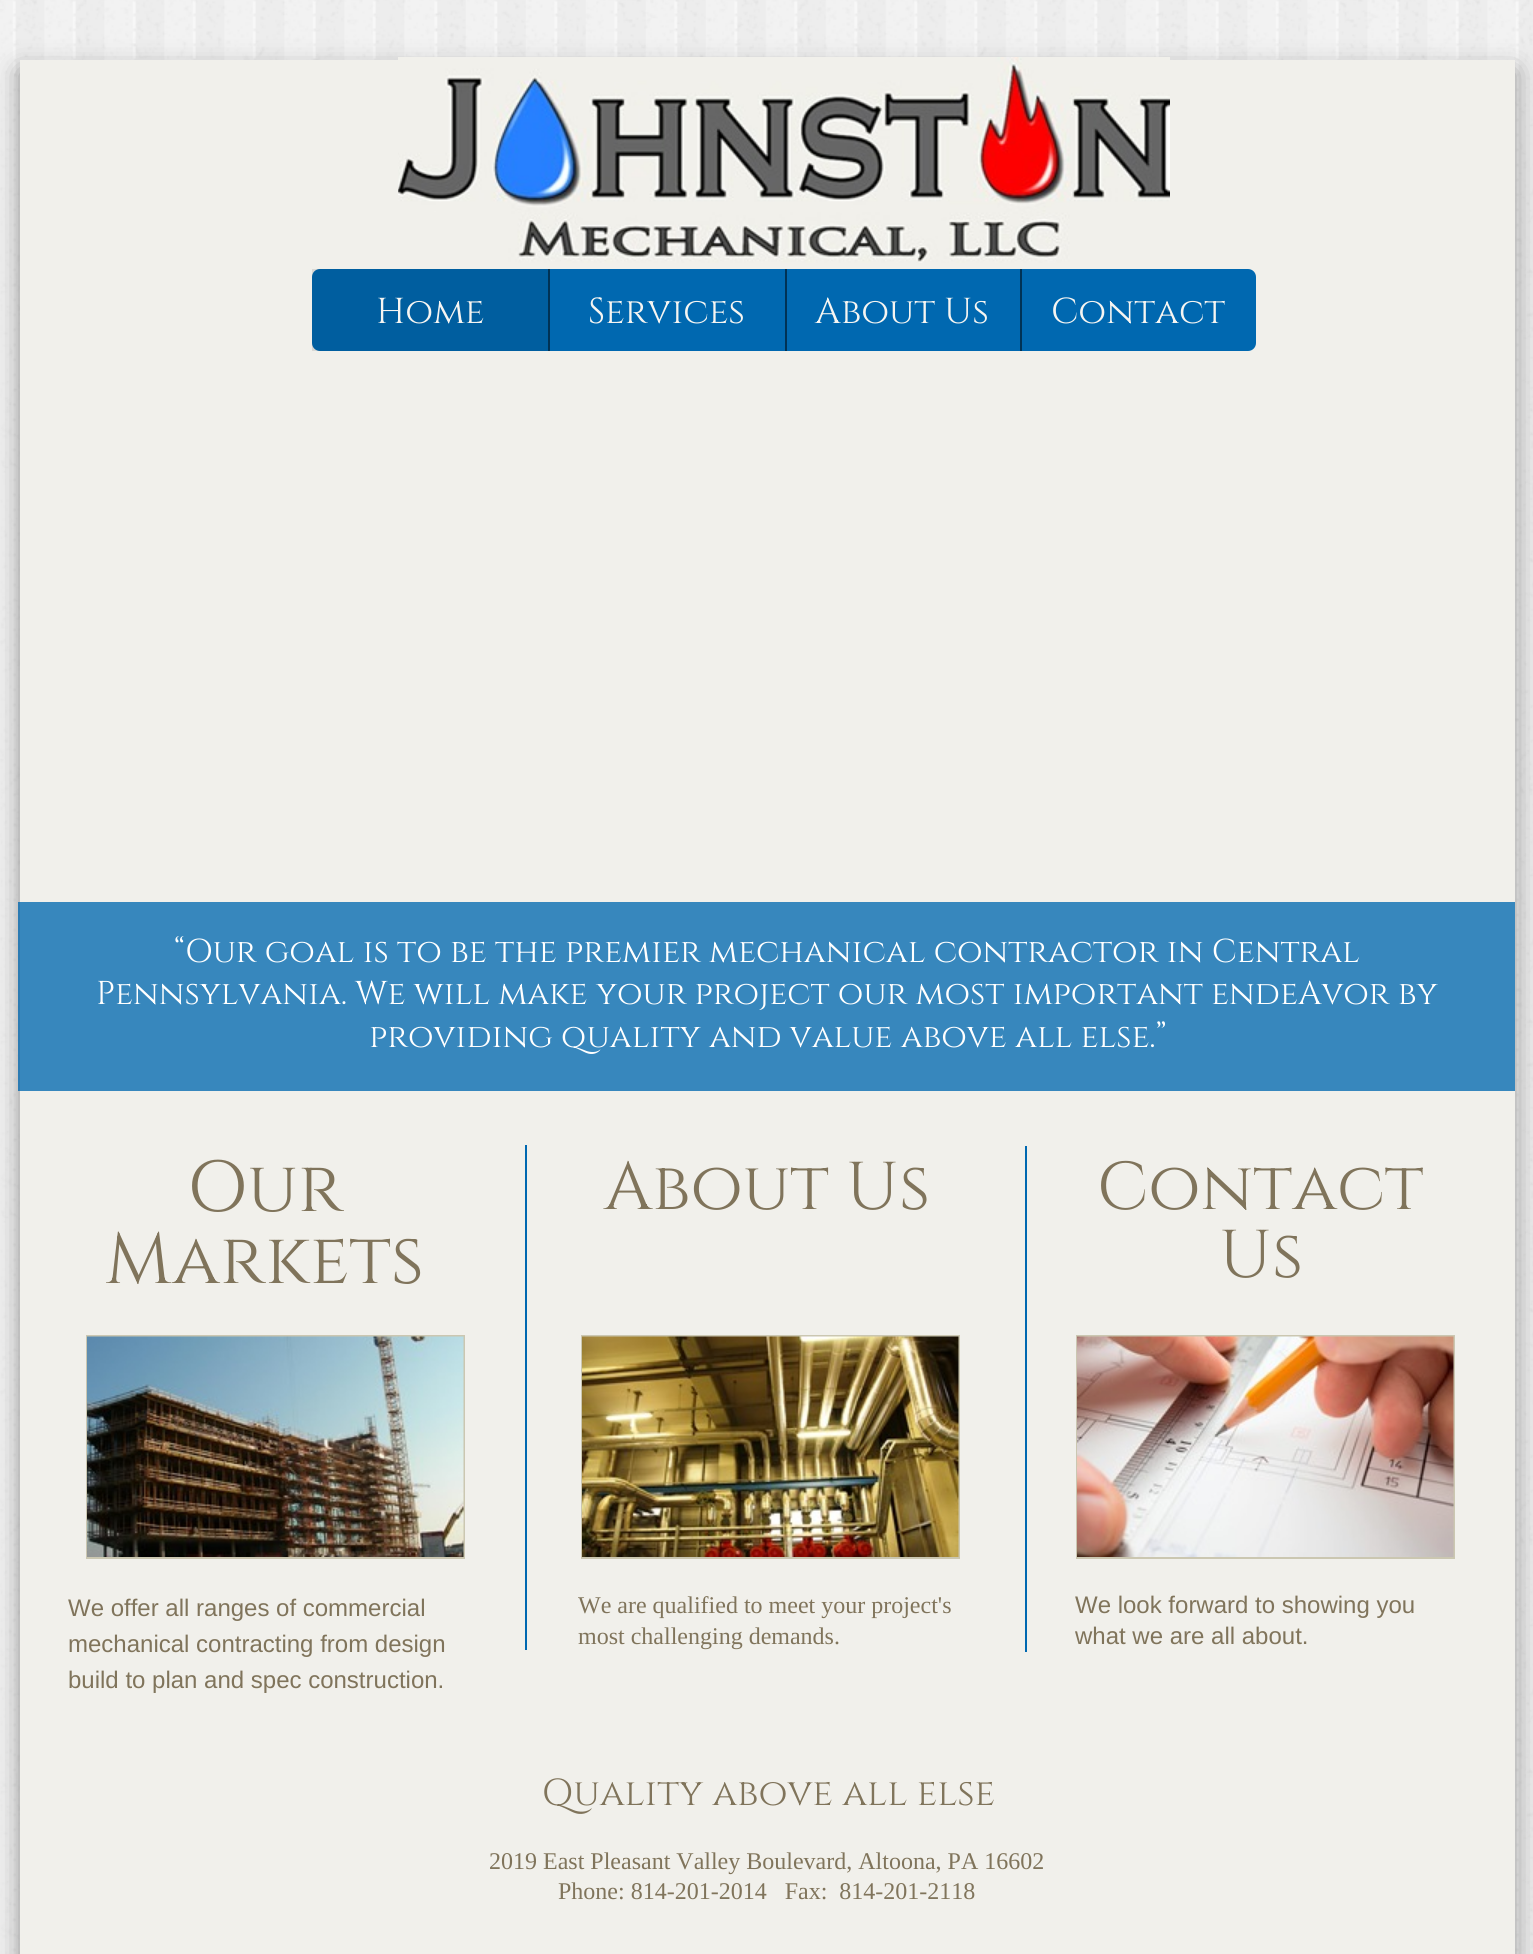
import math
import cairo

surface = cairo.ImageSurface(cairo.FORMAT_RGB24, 1533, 1954)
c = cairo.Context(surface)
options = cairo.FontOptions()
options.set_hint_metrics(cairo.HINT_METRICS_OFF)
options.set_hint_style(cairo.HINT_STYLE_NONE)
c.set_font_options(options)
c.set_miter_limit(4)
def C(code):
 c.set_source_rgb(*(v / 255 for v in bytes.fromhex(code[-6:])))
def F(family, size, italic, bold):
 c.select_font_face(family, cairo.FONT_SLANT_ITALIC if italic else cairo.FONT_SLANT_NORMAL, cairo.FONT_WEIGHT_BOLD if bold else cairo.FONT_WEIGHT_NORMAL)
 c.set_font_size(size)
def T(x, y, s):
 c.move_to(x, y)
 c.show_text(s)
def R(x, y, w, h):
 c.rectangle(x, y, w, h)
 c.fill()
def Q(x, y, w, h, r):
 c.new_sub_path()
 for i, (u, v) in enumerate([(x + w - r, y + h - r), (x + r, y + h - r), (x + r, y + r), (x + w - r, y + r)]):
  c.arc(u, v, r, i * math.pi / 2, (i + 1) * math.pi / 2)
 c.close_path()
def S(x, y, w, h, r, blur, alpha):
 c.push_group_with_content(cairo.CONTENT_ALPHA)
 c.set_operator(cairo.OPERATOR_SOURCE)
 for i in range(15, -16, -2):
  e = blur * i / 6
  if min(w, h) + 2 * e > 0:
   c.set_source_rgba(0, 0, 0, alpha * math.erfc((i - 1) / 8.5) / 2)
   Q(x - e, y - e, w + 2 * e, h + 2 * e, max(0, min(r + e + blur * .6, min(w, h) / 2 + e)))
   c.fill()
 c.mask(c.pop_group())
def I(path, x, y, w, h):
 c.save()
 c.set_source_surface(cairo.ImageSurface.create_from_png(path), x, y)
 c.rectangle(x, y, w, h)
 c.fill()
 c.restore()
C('ffffff')
c.paint()
I('1.png',0,0,1533,1954)
C('323232')
S(20,71,1495,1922,0,13,.5)
C('f1f0eb')
R(20,60,1495,1894)
I('2.png',398,57,772,206)
C('0068b0')
Q(312,269,944,82,8)
c.fill()
c.set_source_rgba(0,0,0,0.1)
R(312,269,236,82)
F('Cinzel',36,0,0)
C('f6f5f2')
T(376,323,'Home')
C('003255')
R(548,269,2,82)
C('f6f5f2')
T(588,323,'Services')
C('003255')
R(785,269,2,82)
C('f6f5f2')
T(815,323,'About Us')
C('003255')
R(1020,269,2,82)
C('f6f5f2')
T(1051,323,'Contact')
c.set_source_rgba(0,0.408,0.69,0.77)
R(18,902,1497,189)
F('Cinzel',33,0,0)
C('ffffff')
T(174,962,'“Our goal is to be the premier mechanical contractor in Central')
T(96,1004,'Pennsylvania. We will make your project our most important endeAvor by')
T(369,1047,'providing quality and value above all else.”')
F('Cinzel',72,0,0)
C('80745b')
T(187,1211,'Our')
T(105,1283,'Markets')
C('0068b0')
R(525,1145,2,505)
F('Cinzel',67.5,0,0)
C('80745b')
T(604,1209,'About Us')
C('0068b0')
R(1025,1146,2,506)
C('80745b')
T(1097,1209,'Contact')
T(1219,1277,'Us')
c.rectangle(87,1336,377,222)
C('cbc7b1')
c.stroke()
I('3.png',87,1336,377,221)
c.rectangle(582,1336,377,222)
c.stroke()
I('4.png',582,1336,377,221)
c.rectangle(1077,1336,377,222)
c.stroke()
I('5.png',1077,1336,377,221)
F('Liberation Sans',24,0,0)
C('80745b')
T(68,1616,'We offer all ranges of commercial')
T(68,1652,'mechanical contracting from design')
T(68,1688,'build to plan and spec construction.')
F('Liberation Serif',24,0,0)
T(578,1613,'We are qualified to meet your project\'s')
T(578,1644,'most challenging demands.')
F('Liberation Sans',24,0,0)
T(1075,1613,'We look forward to showing you')
T(1075,1644,'what we are all about.')
F('Cinzel',37.5,0,0)
T(542,1805,'Quality above all else')
F('Liberation Serif',24,0,0)
T(489,1869,'2019 East Pleasant Valley Boulevard, Altoona, PA 16602')
T(558,1899,'Phone: 814-201-2014   Fax:  814-201-2118')
surface.write_to_png('o.png')
